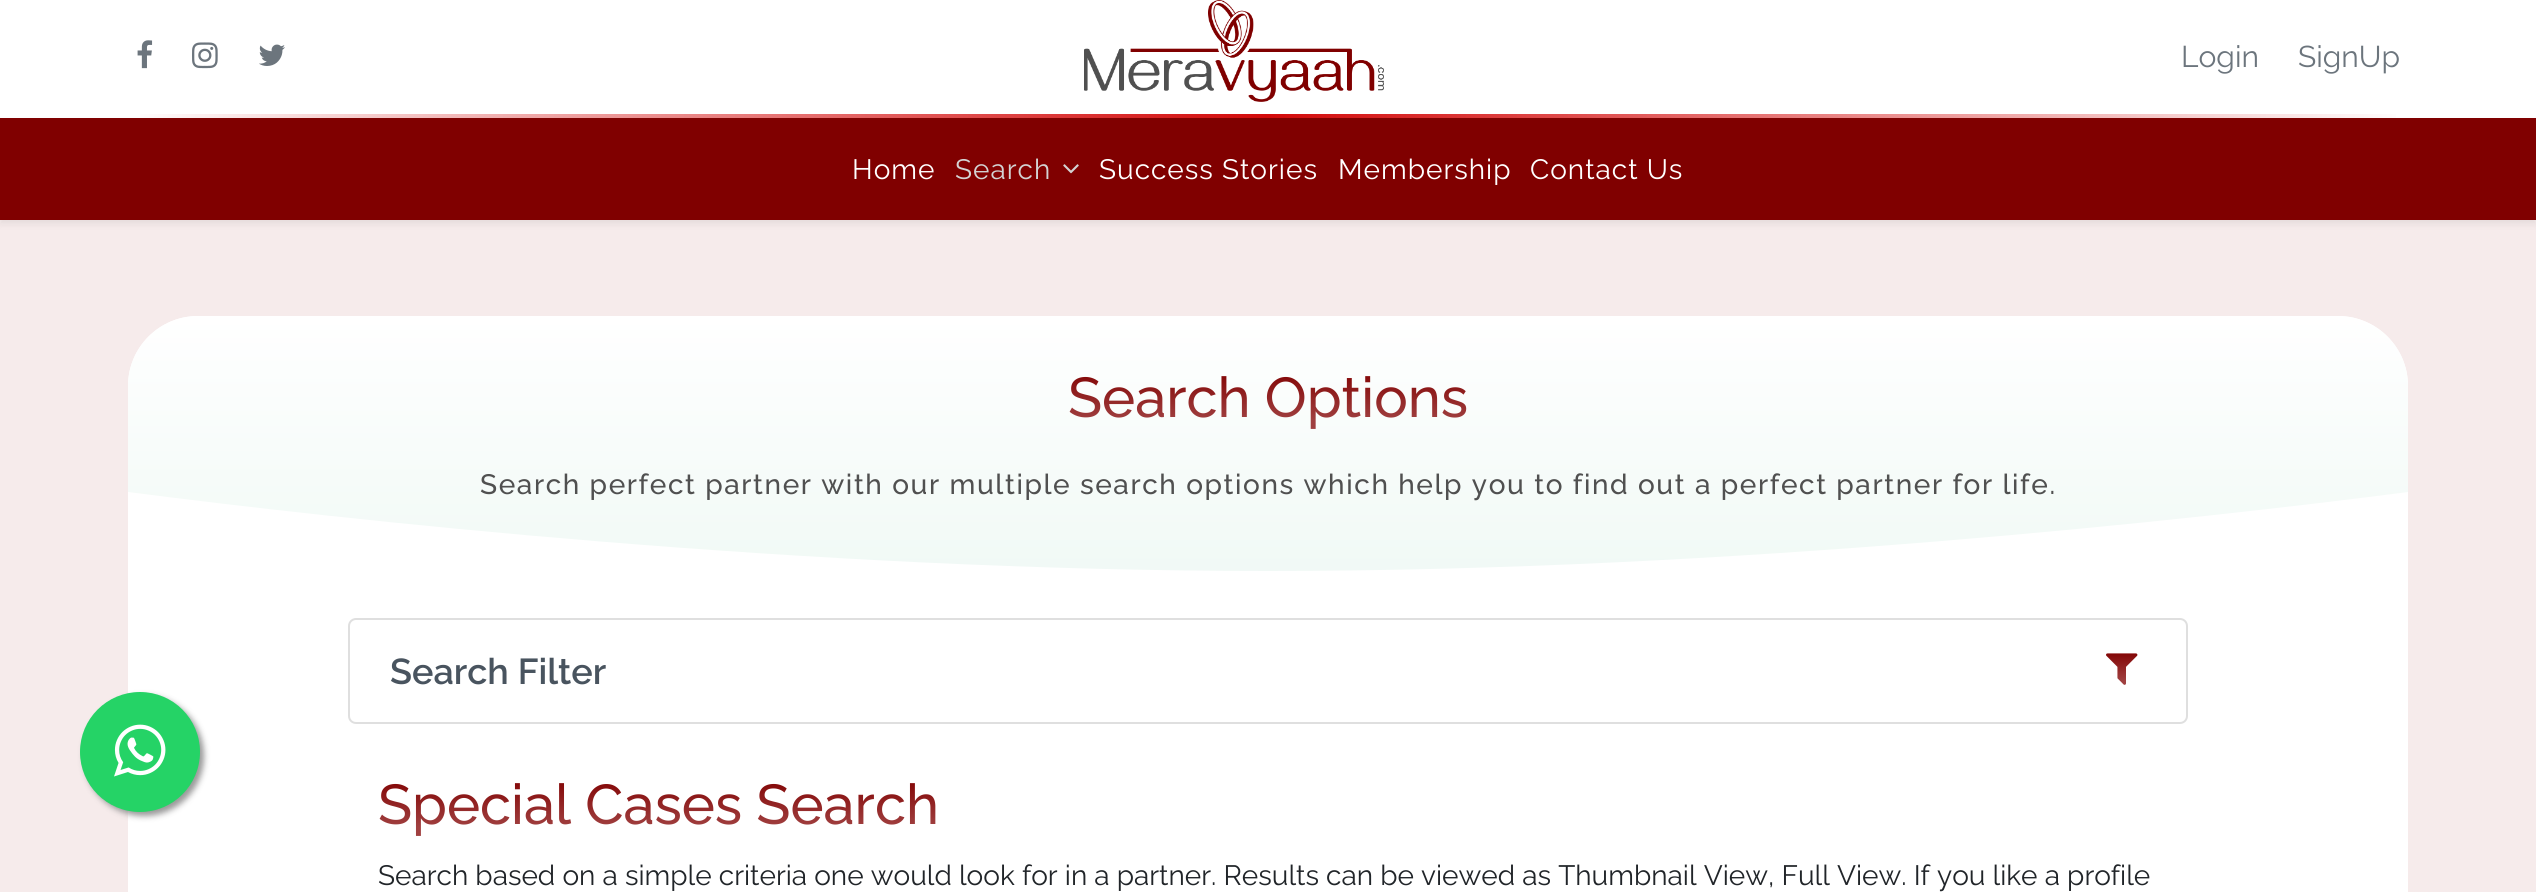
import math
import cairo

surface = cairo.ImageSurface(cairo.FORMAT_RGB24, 2536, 892)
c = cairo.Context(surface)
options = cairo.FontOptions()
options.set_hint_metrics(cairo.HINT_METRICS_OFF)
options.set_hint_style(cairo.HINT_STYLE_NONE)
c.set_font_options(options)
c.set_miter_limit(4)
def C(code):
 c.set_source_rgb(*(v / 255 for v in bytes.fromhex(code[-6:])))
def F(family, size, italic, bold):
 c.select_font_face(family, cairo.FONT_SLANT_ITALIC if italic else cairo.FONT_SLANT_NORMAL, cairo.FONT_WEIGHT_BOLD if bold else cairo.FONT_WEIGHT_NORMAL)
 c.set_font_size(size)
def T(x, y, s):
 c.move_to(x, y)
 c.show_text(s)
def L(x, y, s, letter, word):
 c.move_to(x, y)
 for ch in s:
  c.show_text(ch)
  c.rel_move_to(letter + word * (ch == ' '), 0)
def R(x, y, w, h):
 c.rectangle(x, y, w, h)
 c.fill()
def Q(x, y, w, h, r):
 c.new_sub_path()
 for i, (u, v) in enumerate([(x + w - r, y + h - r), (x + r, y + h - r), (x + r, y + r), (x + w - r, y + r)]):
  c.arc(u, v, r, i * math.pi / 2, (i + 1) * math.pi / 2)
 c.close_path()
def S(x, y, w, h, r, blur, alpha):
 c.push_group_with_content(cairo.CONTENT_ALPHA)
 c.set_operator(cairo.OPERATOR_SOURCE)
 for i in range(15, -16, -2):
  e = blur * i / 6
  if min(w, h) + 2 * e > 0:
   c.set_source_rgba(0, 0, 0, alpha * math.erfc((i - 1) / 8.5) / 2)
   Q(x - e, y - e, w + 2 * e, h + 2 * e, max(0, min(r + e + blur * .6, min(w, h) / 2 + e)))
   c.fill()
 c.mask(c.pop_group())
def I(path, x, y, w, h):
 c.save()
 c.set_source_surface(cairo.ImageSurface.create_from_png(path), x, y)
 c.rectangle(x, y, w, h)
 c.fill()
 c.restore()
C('ffffff')
c.paint()
I('1.png',137,40,16,29)
I('2.png',192,42,26,27)
I('3.png',259,44,26,22)
I('4.png',1084,0,300,102)
F('Raleway',30,0,0)
C('6c757d')
T(2181,67,'Login')
T(2298,67,'SignUp')
gradient = cairo.LinearGradient(128,116,2408,116)
gradient.add_color_stop_rgba(0,1,1,1,1)
gradient.add_color_stop_rgba(.5,0.827,0.039,0.039,1)
gradient.add_color_stop_rgba(1,1,1,1,1)
c.set_source(gradient)
R(140,114,2256,4)
C('f6ebeb')
R(0,220,2536,672)
C('000000')
S(0,122,2536,102,0,4,.07)
C('800000')
R(0,118,2536,102)
F('Raleway',28,0,0)
C('ffffff')
L(852,179,'Home',1,0)
C('d3d3d3')
L(955,179,'Search',1,0)
I('5.png',1063,164,16,10)
C('ffffff')
L(1099,179,'Success Stories',1,0)
L(1338,179,'Membership',1,0)
L(1530,179,'Contact Us',1,0)
Q(128,316,2280,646,70)
c.fill()
C('999999')
S(84,696,120,120,60,3,1)
C('25d366')
c.arc(140,752,60,0,2 * math.pi)
c.fill()
I('6.png',114,724,52,53)
gradient = cairo.LinearGradient(1268,316,1268,586)
gradient.add_color_stop_rgba(0,1,1,1,1)
gradient.add_color_stop_rgba(1,0.941,0.976,0.961,1)
c.set_source(gradient)
c.new_path()
c.move_to(198,316)
c.line_to(2338,316)
c.curve_to(2376.5,316,2408,347.5,2408,386)
c.line_to(2408,586)
c.line_to(128,586)
c.line_to(128,386)
c.curve_to(128,347.5,159.5,316,198,316)
c.close_path()
c.fill()
F('Raleway Medium',56,0,0)
gradient = cairo.LinearGradient(1268,364,1268,432)
gradient.add_color_stop_rgba(.05,0.502,0,0,1)
gradient.add_color_stop_rgba(.82,0.624,0.247,0.247,1)
c.set_source(gradient)
T(1068,417,'Search Options')
F('Raleway Medium',28,0,0)
C('505050')
L(480,494,'Search perfect partner with our multiple search options which help you to find out a perfect partner for life.',1.6,0)
C('ffffff')
c.new_path()
c.move_to(128,588)
c.line_to(128,492)
c.curve_to(337,519,802,571,1268,571)
c.curve_to(1734,571,2199,519,2408,492)
c.line_to(2408,588)
c.close_path()
c.fill()
Q(349,619,1838,104,7)
C('dfdfdf')
c.stroke()
F('Raleway SemiBold',36,0,0)
C('49545f')
T(390,684,'Search Filter')
I('7.png',2106,653,32,32)
F('Raleway Medium',56,0,0)
gradient = cairo.LinearGradient(1268,772,1268,839)
gradient.add_color_stop_rgba(.05,0.502,0,0,1)
gradient.add_color_stop_rgba(.82,0.627,0.251,0.251,1)
c.set_source(gradient)
T(378,824,'Special Cases Search')
F('Raleway',28,0,0)
C('212529')
T(378,885,'Search based on a simple criteria one would look for in a partner. Results can be viewed as Thumbnail View, Full View. If you like a profile')
surface.write_to_png('o.png')
